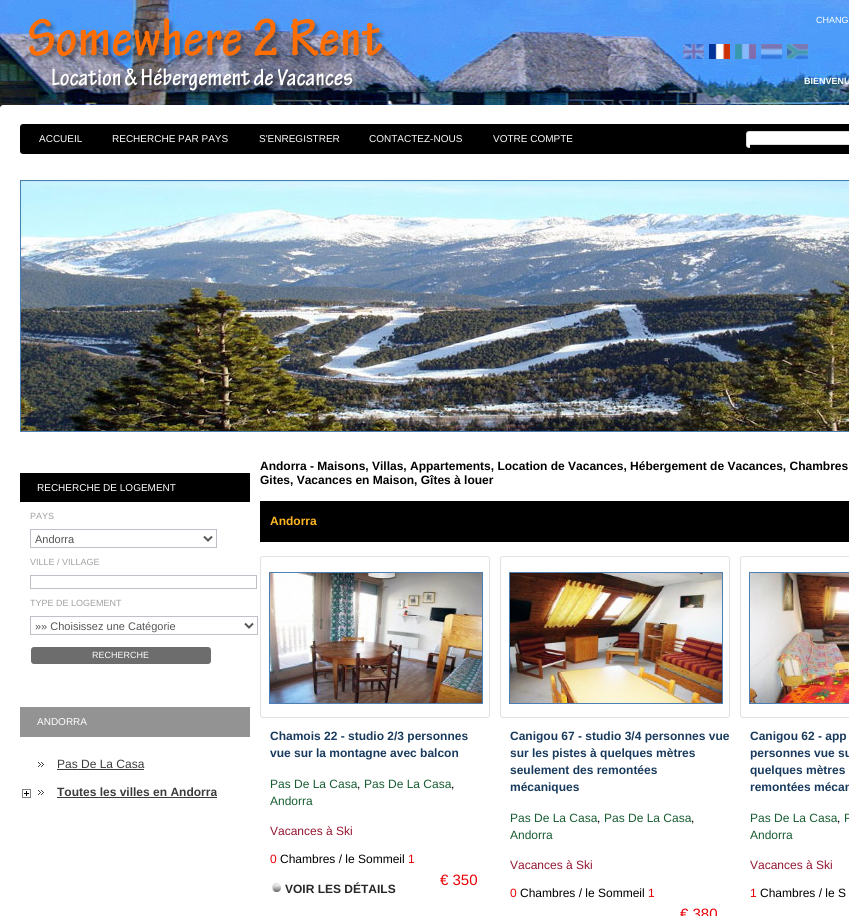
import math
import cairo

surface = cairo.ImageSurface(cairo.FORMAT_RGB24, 849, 916)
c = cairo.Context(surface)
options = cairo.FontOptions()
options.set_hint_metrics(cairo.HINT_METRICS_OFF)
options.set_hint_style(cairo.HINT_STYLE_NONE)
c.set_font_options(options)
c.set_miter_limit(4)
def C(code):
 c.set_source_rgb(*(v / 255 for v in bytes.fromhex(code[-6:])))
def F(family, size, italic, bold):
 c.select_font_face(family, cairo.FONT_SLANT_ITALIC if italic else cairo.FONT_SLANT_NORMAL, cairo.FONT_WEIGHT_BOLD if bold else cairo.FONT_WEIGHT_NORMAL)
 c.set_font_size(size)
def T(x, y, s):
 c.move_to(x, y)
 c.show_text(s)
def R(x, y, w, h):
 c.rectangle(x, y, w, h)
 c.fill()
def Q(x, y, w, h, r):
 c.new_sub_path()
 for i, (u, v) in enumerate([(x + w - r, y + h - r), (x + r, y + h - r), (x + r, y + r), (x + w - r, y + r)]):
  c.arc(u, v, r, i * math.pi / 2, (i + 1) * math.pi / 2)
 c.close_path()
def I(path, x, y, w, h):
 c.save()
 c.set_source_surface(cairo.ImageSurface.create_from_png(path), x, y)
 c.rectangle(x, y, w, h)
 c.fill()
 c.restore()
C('ffffff')
c.paint()
I('1.png',0,0,849,108)
I('2.png',0,105,849,73)
I('3.png',29,18,359,77)
F('Liberation Sans',9,0,0)
C('ffffff')
T(816,23,'CHANG')
I('4.png',683,44,21,15)
I('5.png',709,44,21,15)
I('6.png',735,44,21,15)
I('7.png',761,44,21,15)
I('8.png',787,44,21,15)
F('Liberation Sans',9,0,1)
T(804,84,'BIENVENU')
F('Liberation Sans',10,0,0)
T(39,142,'ACCUEIL')
T(112,142,'RECHERCHE PAR PAYS')
T(259,142,'S\'ENREGISTRER')
T(369,142,'CONTACTEZ-NOUS')
T(493,142,'VOTRE COMPTE')
I('9.png',746,131,4,17)
R(750,132,99,12)
C('dcdada')
R(750,131,99,1)
R(750,144,99,1)
c.rectangle(20.5,180.5,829,251)
C('4c80b5')
c.set_line_width(1)
c.stroke()
I('10.png',21,181,828,250)
C('000000')
R(20,473,230,29)
C('ffffff')
T(37,491,'RECHERCHE DE LOGEMENT')
F('Liberation Sans',9,0,0)
C('a0a0a0')
T(30,519,'PAYS')
c.rectangle(30.5,529.5,186,18)
C('bdc2c9')
c.stroke()
c.new_path()
c.move_to(204,536.5)
c.line_to(208,540.5)
c.line_to(212,536.5)
C('555555')
c.set_line_width(2)
c.stroke()
F('Liberation Sans',11,0,0)
T(35,543,'Andorra')
F('Liberation Sans',9,0,0)
C('a0a0a0')
T(30,565,'VILLE / VILLAGE')
c.rectangle(30.5,575.5,226,13)
C('bdc2c9')
c.set_line_width(1)
c.stroke()
C('a0a0a0')
T(30,606,'TYPE DE LOGEMENT')
c.rectangle(30.5,616.5,227,18)
C('bdc2c9')
c.stroke()
c.new_path()
c.move_to(245,623.5)
c.line_to(249,627.5)
c.line_to(253,623.5)
C('555555')
c.set_line_width(2)
c.stroke()
F('Liberation Sans',11,0,0)
T(35,630,'»» Choisissez une Catégorie')
C('6d6d6d')
Q(31,647,180,17,3)
c.fill()
F('Liberation Sans',9,0,0)
C('ffffff')
T(92,658,'RECHERCHE')
C('939393')
R(20,707,230,30)
F('Liberation Sans',10,0,0)
C('ffffff')
T(37,725,'ANDORRA')
I('11.png',38,762,6,5)
F('Liberation Sans',12,0,0)
C('3c3c3c')
T(57,768,'Pas De La Casa')
R(57,769,87,1)
I('12.png',22,789,9,9)
I('11.png',38,790,6,5)
F('Liberation Sans',12,0,1)
T(57,796,'Toutes les villes en Andorra')
R(57,797,160,1)
C('000000')
T(260,470,'Andorra - Maisons, Villas, Appartements, Location de Vacances, Hébergement de Vacances, Chambres')
T(260,484,'Gites, Vacances en Maison, Gîtes à louer')
R(260,501,589,41)
C('ffb824')
T(270,525,'Andorra')
Q(260.5,556.5,229,161,2.5)
C('e2e2e2')
c.set_line_width(1)
c.stroke()
c.rectangle(269.5,572.5,213,131)
C('4c80b5')
c.stroke()
I('13.png',270,573,212,130)
C('183a5d')
T(270,740,'Chamois 22 - studio 2/3 personnes')
T(270,757,'vue sur la montagne avec balcon')
F('Liberation Sans',12,0,0)
C('185d32')
T(270,788,'Pas De La Casa')
C('000000')
T(357,788,',')
C('185d32')
T(364,788,'Pas De La Casa')
C('000000')
T(451,788,',')
C('185d32')
T(270,805,'Andorra')
C('941631')
T(270,835,'Vacances à Ski')
C('e80005')
T(270,863,'0')
C('000000')
T(280,863,'Chambres / le Sommeil')
C('e80005')
T(408,863,'1')
F('Liberation Sans',15,0,0)
T(440,885,'€ 350')
I('14.png',272,883,9,9)
F('Liberation Sans',12,0,1)
C('272727')
T(285,893,'VOIR LES DÉTAILS')
Q(500.5,556.5,229,161,2.5)
C('e2e2e2')
c.stroke()
c.rectangle(509.5,572.5,213,131)
C('4c80b5')
c.stroke()
I('15.png',510,573,212,130)
C('183a5d')
T(510,740,'Canigou 67 - studio 3/4 personnes vue')
T(510,757,'sur les pistes à quelques mètres')
T(510,774,'seulement des remontées')
T(510,791,'mécaniques')
F('Liberation Sans',12,0,0)
C('185d32')
T(510,822,'Pas De La Casa')
C('000000')
T(597,822,',')
C('185d32')
T(604,822,'Pas De La Casa')
C('000000')
T(691,822,',')
C('185d32')
T(510,839,'Andorra')
C('941631')
T(510,869,'Vacances à Ski')
C('e80005')
T(510,897,'0')
C('000000')
T(520,897,'Chambres / le Sommeil')
C('e80005')
T(648,897,'1')
F('Liberation Sans',15,0,0)
T(680,919,'€ 380')
Q(740.5,556.5,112,161,2.5)
C('e2e2e2')
c.stroke()
c.rectangle(749.5,572.5,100,131)
C('4c80b5')
c.stroke()
I('16.png',750,573,99,130)
F('Liberation Sans',12,0,1)
C('183a5d')
T(750,740,'Canigou 62 - app')
T(750,757,'personnes vue su')
T(750,774,'quelques mètres')
T(750,791,'remontées mécan')
F('Liberation Sans',12,0,0)
C('185d32')
T(750,822,'Pas De La Casa')
C('000000')
T(837,822,',')
C('185d32')
T(844,822,'P')
T(750,839,'Andorra')
C('941631')
T(750,869,'Vacances à Ski')
C('e80005')
T(750,897,'1')
C('000000')
T(760,897,'Chambres / le S')
surface.write_to_png('o.png')
